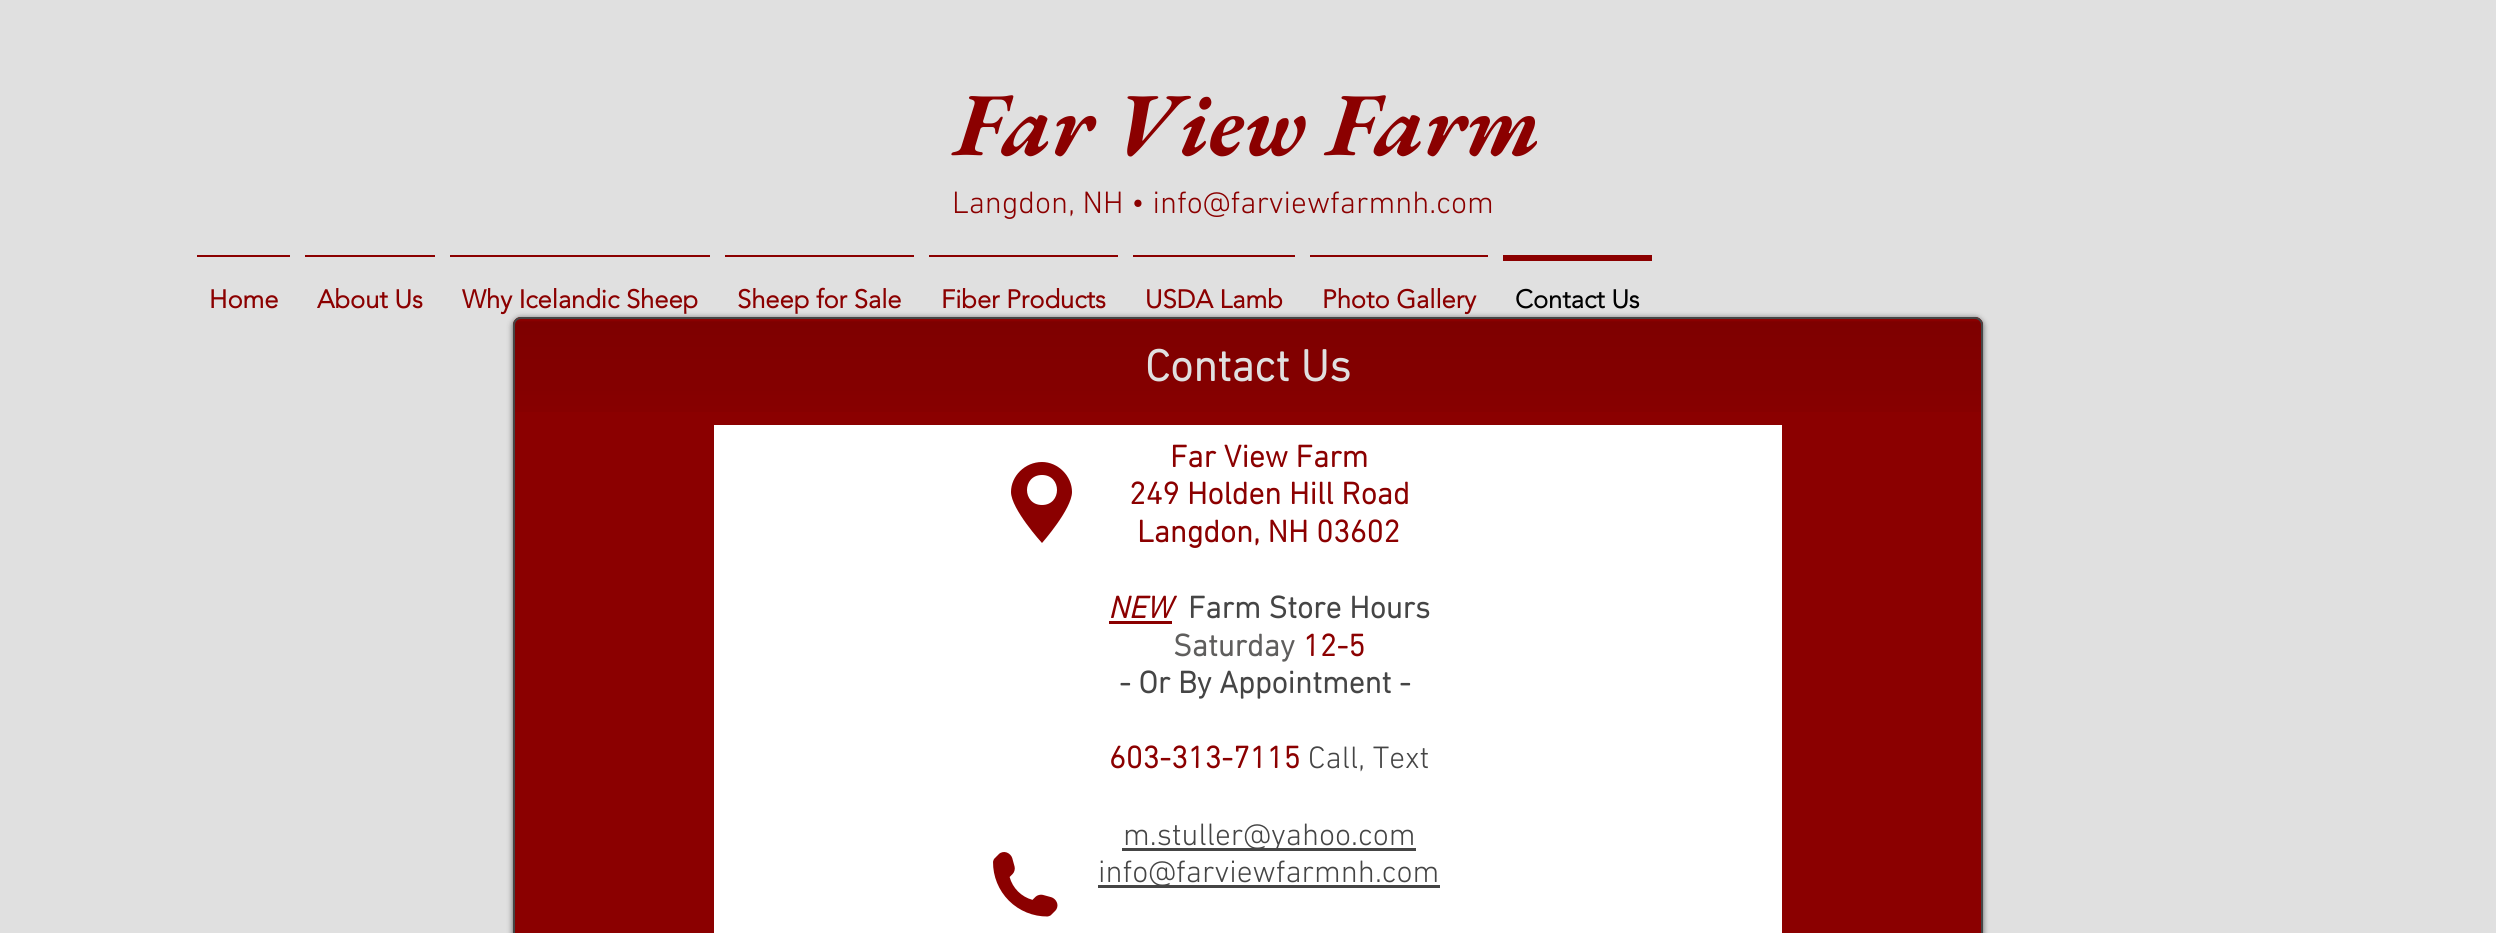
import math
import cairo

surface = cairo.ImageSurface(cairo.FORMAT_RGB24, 2496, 933)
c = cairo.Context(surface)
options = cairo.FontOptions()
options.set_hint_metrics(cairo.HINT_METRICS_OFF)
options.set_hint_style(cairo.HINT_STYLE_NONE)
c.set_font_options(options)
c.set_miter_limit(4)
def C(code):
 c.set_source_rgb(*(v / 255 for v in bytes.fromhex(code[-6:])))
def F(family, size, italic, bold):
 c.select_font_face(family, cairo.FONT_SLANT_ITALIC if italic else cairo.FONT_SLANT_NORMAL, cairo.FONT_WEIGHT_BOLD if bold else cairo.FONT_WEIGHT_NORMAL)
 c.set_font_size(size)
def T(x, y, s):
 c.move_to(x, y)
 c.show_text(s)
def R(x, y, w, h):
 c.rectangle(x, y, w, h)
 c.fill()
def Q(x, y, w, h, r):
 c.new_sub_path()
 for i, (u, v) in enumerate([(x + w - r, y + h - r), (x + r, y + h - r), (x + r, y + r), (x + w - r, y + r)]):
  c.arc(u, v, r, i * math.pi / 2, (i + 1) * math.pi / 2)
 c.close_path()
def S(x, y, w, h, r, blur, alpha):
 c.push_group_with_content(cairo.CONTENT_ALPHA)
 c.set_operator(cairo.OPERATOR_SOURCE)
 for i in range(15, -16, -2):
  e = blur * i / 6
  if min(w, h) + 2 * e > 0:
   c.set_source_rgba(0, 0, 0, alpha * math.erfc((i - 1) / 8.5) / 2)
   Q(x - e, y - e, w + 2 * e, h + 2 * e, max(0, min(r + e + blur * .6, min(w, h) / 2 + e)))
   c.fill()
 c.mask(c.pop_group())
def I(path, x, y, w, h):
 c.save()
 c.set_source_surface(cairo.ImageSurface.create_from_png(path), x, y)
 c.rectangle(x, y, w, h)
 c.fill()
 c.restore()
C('e0e0e0')
c.paint()
F('EB Garamond',90,1,1)
C('8b0000')
T(955,155,'Far View Farm')
F('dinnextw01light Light',31.5,0,0)
T(952,213,'Langdon, NH • info@farviewfarmnh.com')
R(197,255,93,2)
F('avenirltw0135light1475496',25.5,0,1)
T(209,308,'Home')
R(305,255,130,2)
T(317,308,'About Us')
R(450,255,260,2)
T(462,308,'Why Icelandic Sheep')
R(725,255,189,2)
T(737,308,'Sheep for Sale')
R(929,255,189,2)
T(941,308,'Fiber Products')
R(1133,255,162,2)
T(1145,308,'USDA Lamb')
R(1310,255,178,2)
T(1322,308,'Photo Gallery')
R(1503,255,149,6)
C('000000')
T(1515,308,'Contact Us')
C('000000')
S(513,318,1470,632,8,3,.6)
C('8b0000')
Q(513,317,1470,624,8)
c.fill()
I('1.png',513,321,1470,91)
Q(514,318,1468,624,7)
C('454545')
c.stroke()
F('dinnextw01light',45,0,1)
C('e0e0e0')
T(1145,381,'Contact Us')
C('ffffff')
R(714,425,1068,508)
C('8b0000')
c.new_path()
c.move_to(1042,462)
c.curve_to(1025,462,1011,476,1011,492)
c.curve_to(1011,509,1042,543,1042,543)
c.curve_to(1042,543,1072,509,1072,492)
c.curve_to(1072,476,1058,462,1042,462)
c.close_path()
c.move_to(1042,505)
c.curve_to(1022,505,1022,475,1042,475)
c.curve_to(1062,475,1062,505,1042,505)
c.close_path()
c.fill()
F('dinnextw01light',31.5,0,1)
T(1170,467,'Far View Farm')
T(1129,504,'249 Holden Hill Road')
T(1137,542,'Langdon, NH 03602')
F('dinnextw01light',31.5,1,1)
T(1108,618,'NEW')
R(1109,621,63,3)
F('dinnextw01light',31.5,0,1)
C('454545')
T(1188,618,'Farm Store Hours')
C('5f5e5d')
T(1173,656,'Saturday')
C('8b0000')
T(1303,656,'12-5')
C('454545')
T(1119,693,'- Or By Appointment -')
C('8b0000')
T(1109,768,'603-313-7115')
F('dinnextw01light Light',31.5,0,0)
C('454545')
T(1308,768,'Call, Text')
R(1122,848,294,3)
T(1123,845,'m.stuller@yahoo.com')
R(1098,885,342,3)
T(1098,882,'info@farviewfarmnh.com')
I('2.png',993,852,65,65)
surface.write_to_png('o.png')
